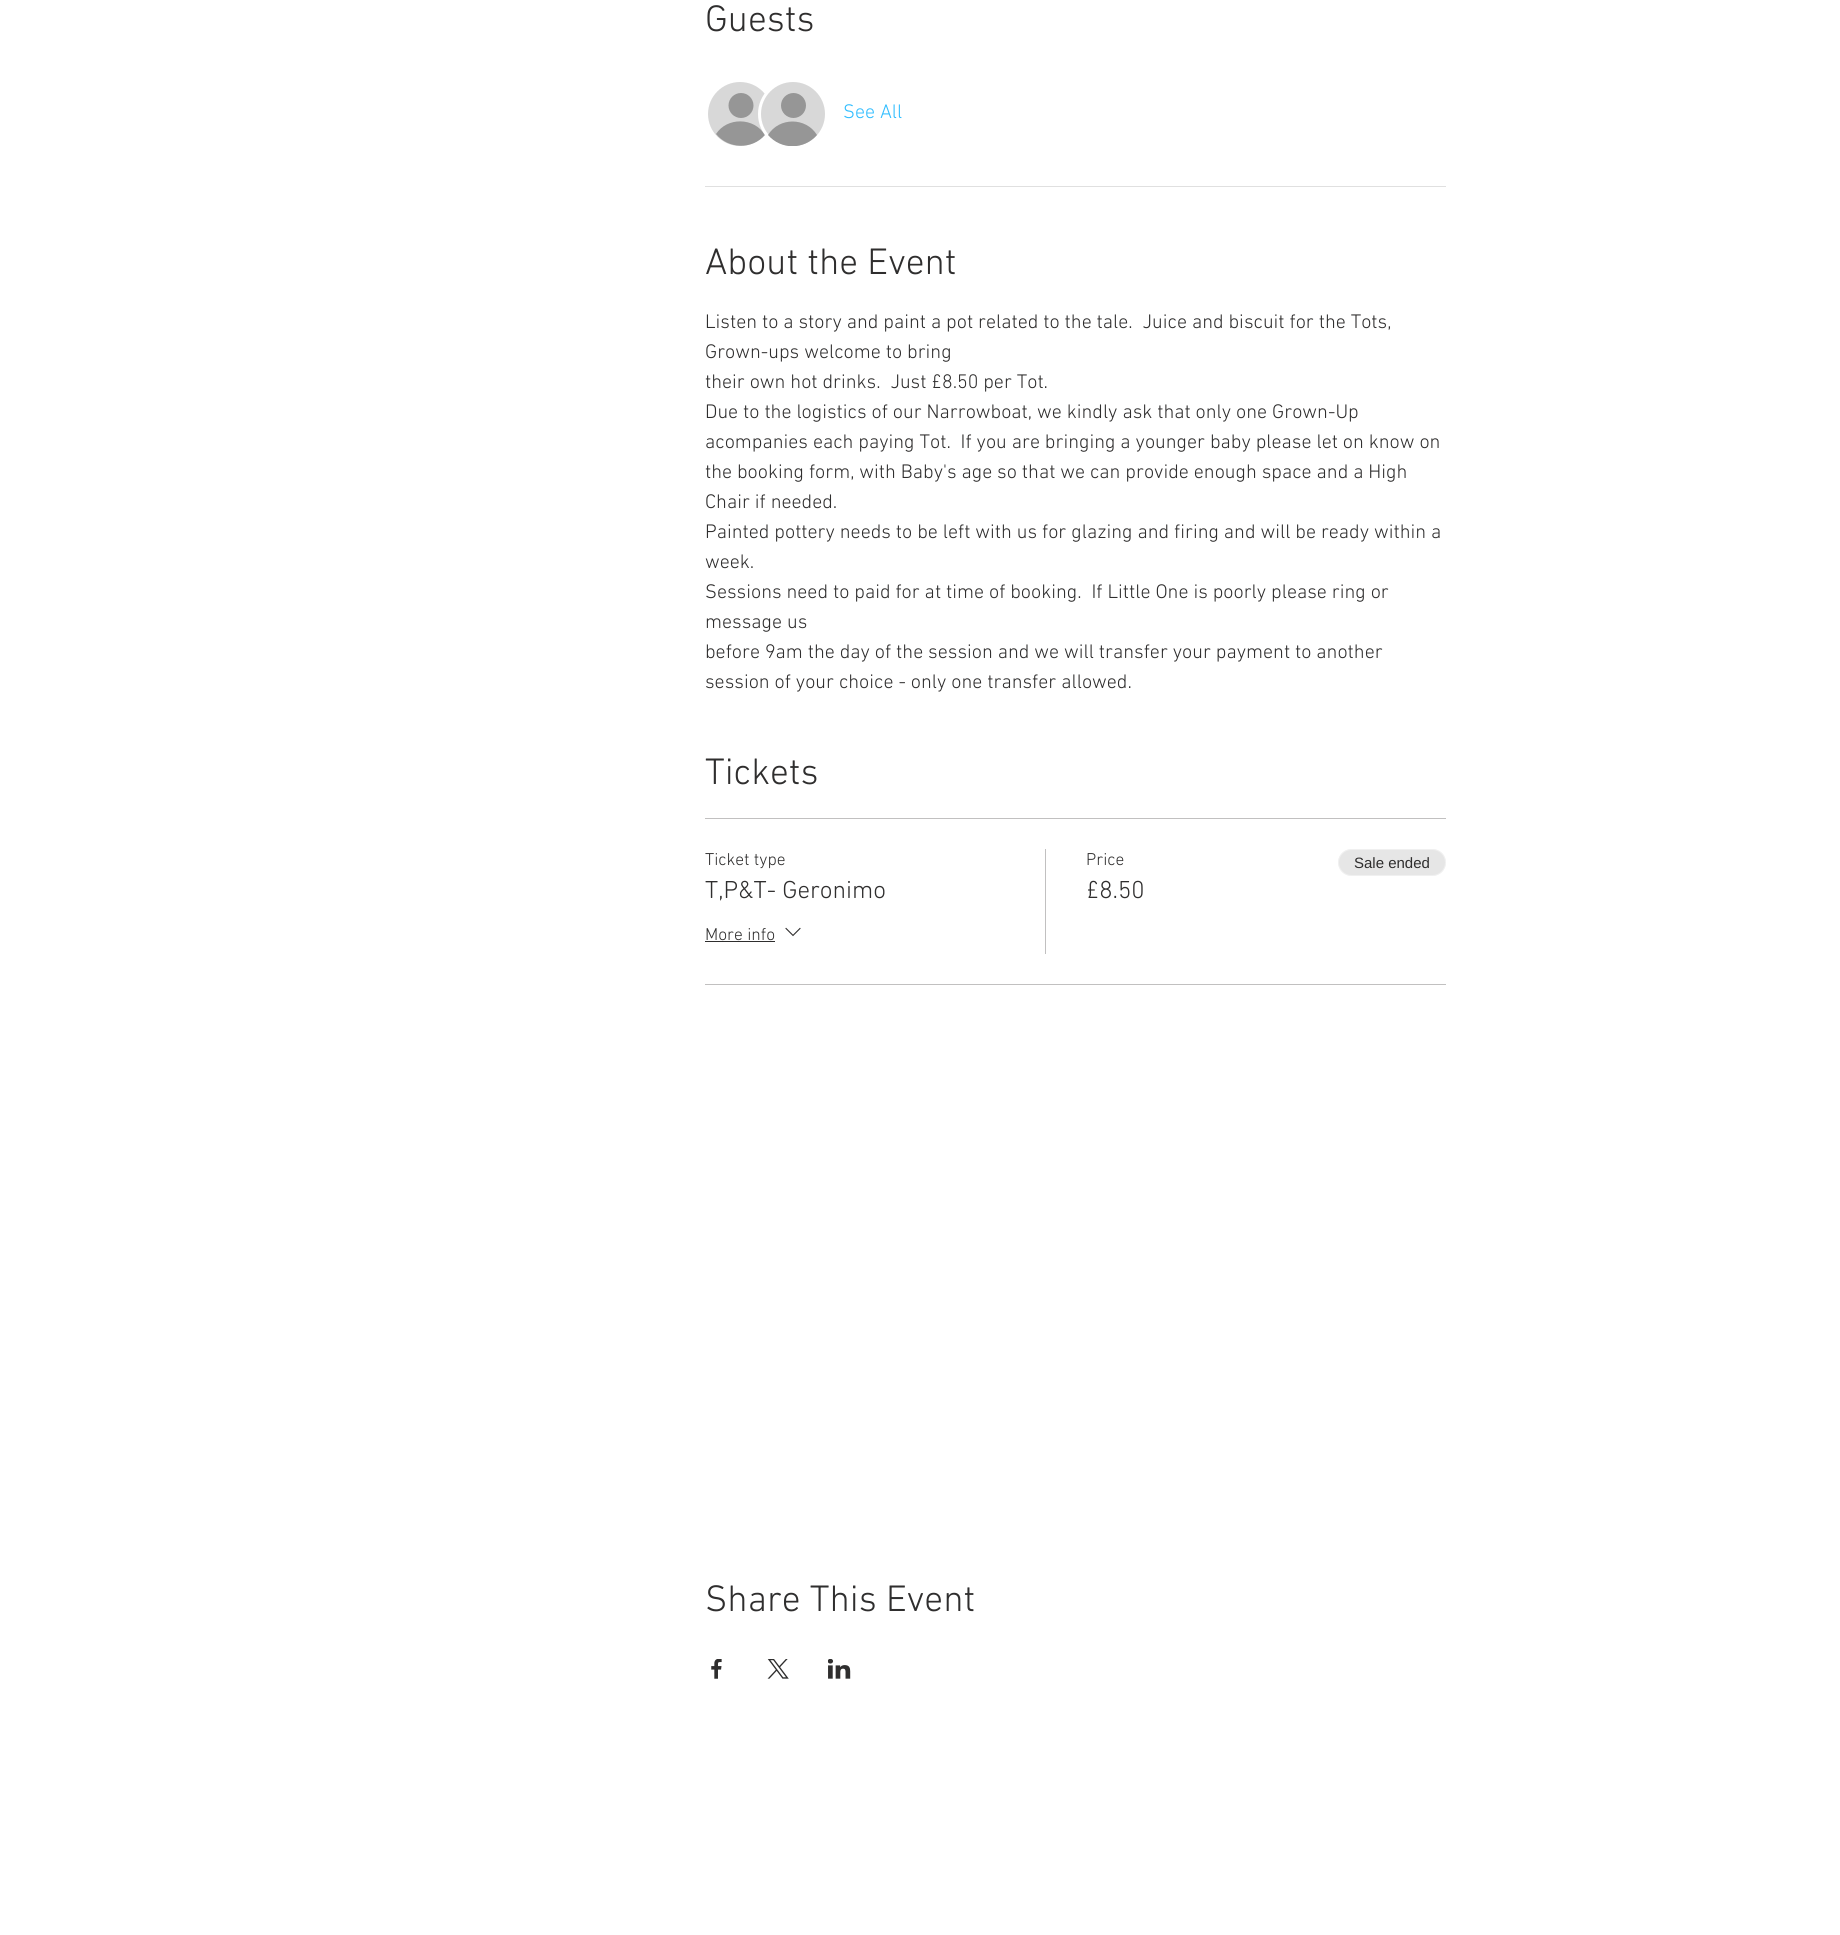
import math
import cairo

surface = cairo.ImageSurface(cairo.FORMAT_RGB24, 1840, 1935)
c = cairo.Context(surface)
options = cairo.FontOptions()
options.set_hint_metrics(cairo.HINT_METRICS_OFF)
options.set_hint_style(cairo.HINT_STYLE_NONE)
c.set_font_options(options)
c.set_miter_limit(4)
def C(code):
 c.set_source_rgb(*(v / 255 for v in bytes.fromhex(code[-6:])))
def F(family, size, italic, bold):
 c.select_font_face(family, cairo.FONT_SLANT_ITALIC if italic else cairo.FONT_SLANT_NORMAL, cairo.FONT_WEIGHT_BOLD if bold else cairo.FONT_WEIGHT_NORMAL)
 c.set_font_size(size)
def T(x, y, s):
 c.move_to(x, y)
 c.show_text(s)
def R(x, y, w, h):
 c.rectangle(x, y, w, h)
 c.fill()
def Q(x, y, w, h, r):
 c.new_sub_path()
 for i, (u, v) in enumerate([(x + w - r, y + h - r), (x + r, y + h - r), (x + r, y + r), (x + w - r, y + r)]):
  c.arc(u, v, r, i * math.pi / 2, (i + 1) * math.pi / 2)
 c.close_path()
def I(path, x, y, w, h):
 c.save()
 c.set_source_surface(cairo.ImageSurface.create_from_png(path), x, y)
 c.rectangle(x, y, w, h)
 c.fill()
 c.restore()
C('ffffff')
c.paint()
F('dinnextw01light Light',37.5,0,0)
C('2f2e2e')
T(705,31,'Guests')
C('d8d8d8')
c.new_path()
c.arc(740,114,33.5,0,2 * math.pi)
c.fill_preserve()
C('ffffff')
c.set_line_width(3)
c.stroke()
C('969696')
c.arc(741,105.5,12.5,0,2 * math.pi)
c.fill()
c.new_path()
c.move_to(765,135)
c.curve_to(752,150,728,149,716,134)
c.curve_to(727,117,754,117,765,135)
c.close_path()
c.fill()
C('d8d8d8')
c.arc(793,114,33.5,0,2 * math.pi)
c.fill_preserve()
C('ffffff')
c.stroke()
C('969696')
c.arc(793.5,105.5,12.5,0,2 * math.pi)
c.fill()
c.save()
c.rectangle(760,81,65,65)
c.clip()
c.new_path()
c.move_to(817,135)
c.curve_to(804,150,781,150,768,135)
c.curve_to(779,117,806,117,817,135)
c.close_path()
c.fill()
c.restore()
F('dinnextw01light Light',20,0,0)
C('30bdff')
T(843,118,'See All')
C('e0e0e0')
R(705,186,741,1)
F('dinnextw01light Light',37.5,0,0)
C('2f2e2e')
T(705,274,'About the Event')
F('dinnextw01light Light',20,0,0)
T(705,328,'Listen to a story and paint a pot related to the tale.  Juice and biscuit for the Tots,')
T(705,358,'Grown-ups welcome to bring')
T(705,388,'their own hot drinks.  Just £8.50 per Tot.')
T(705,418,'Due to the logistics of our Narrowboat, we kindly ask that only one Grown-Up')
T(705,448,'acompanies each paying Tot.  If you are bringing a younger baby please let on know on')
T(705,478,'the booking form, with Baby\'s age so that we can provide enough space and a High')
T(705,508,'Chair if needed.')
T(705,538,'Painted pottery needs to be left with us for glazing and firing and will be ready within a')
T(705,568,'week.')
T(705,598,'Sessions need to paid for at time of booking.  If Little One is poorly please ring or')
T(705,628,'message us')
T(705,658,'before 9am the day of the session and we will transfer your payment to another')
T(705,688,'session of your choice - only one transfer allowed.')
F('dinnextw01light Light',37.5,0,0)
T(705,784,'Tickets')
C('c1c0c0')
R(705,818,741,1)
R(705,984,741,1)
F('dinnextw01light Light',17.5,0,0)
C('2f2e2e')
T(705,865,'Ticket type')
F('dinnextw01light Light',25,0,0)
T(705,898,'T,P&T- Geronimo')
F('dinnextw01light Light',17.5,0,0)
T(705,940,'More info')
R(705,941,70,1)
I('1.png',785,927,16,10)
C('c1c0c0')
R(1045,849,1,105)
C('2f2e2e')
T(1086,865,'Price')
F('dinnextw01light Light',25,0,0)
T(1086,898,'£8.50')
C('e6e6e6')
Q(1338,849,108,27,13.5)
c.fill()
Q(1338.5,849.5,107,26,13)
c.set_source_rgba(1,1,1,0.4)
c.set_line_width(1)
c.stroke()
F('Liberation Sans',15,0,0)
C('2f2e2e')
T(1354,868,'Sale ended')
F('dinnextw01light Light',37.5,0,0)
T(705,1611,'Share This Event')
I('2.png',711,1659,11,20)
I('3.png',767,1659,22,20)
I('4.png',828,1659,23,20)
surface.write_to_png('o.png')
